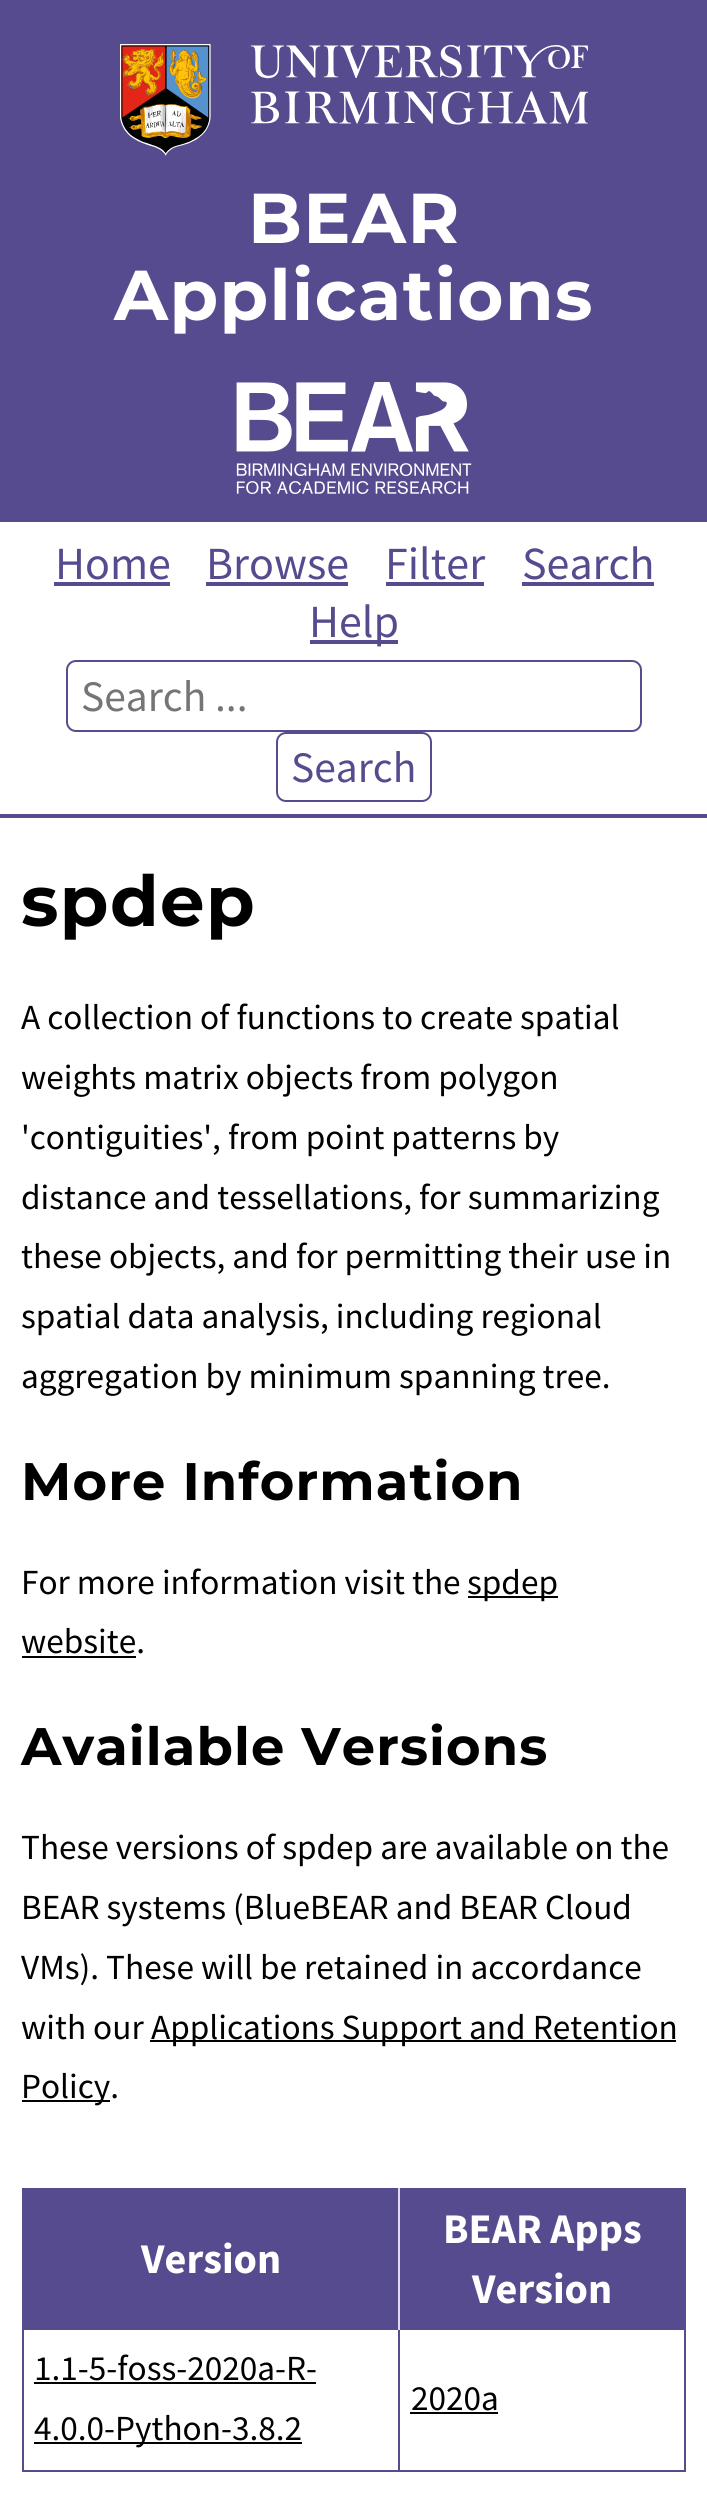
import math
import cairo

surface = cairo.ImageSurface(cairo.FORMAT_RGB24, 707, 2499)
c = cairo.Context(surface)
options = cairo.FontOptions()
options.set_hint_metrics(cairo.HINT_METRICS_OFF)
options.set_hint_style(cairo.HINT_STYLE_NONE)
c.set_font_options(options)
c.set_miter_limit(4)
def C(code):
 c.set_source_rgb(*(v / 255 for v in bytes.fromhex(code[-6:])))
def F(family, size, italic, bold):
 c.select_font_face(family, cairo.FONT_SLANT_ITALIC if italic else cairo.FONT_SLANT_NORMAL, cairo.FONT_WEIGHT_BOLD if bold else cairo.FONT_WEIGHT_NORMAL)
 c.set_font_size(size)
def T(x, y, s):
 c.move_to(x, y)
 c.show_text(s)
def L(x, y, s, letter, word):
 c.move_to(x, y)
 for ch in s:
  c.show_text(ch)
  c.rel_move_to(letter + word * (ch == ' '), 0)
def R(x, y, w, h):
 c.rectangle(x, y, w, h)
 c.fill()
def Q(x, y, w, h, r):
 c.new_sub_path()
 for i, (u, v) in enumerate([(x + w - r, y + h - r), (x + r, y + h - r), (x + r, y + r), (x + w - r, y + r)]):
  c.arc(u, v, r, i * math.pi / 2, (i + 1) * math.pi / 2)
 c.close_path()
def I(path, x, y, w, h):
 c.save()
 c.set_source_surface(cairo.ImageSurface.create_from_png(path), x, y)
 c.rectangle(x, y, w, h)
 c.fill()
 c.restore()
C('ffffff')
c.paint()
C('574b90')
R(0,0,707,522)
I('1.png',120,44,468,112)
F('Montserrat',70.5,0,1)
C('ffffff')
L(248,243,'BEAR',1.4,0)
L(114,320,'Applications',1.4,0)
I('2.png',236,382,236,112)
C('574b90')
R(0,814,707,4)
F('Source Sans Pro',46,0,0)
T(55,579,'Home')
R(54,582,116,4)
T(206,579,'Browse')
R(206,582,142,4)
T(385,579,'Filter')
R(386,582,98,4)
T(522,579,'Search')
R(522,582,132,4)
R(310,640,88,4)
T(309,637,'Help')
Q(67,661,574,70,9)
c.stroke()
F('Source Sans Pro',43.5,0,0)
C('757575')
T(81,711,'Search ...')
Q(277,733,154,68,9)
C('574b90')
c.stroke()
T(291,782,'Search')
F('Montserrat',70.5,0,1)
C('000000')
L(21,926,'spdep',1.4,0)
F('Source Sans Pro',35.25,0,0)
T(21,1029,'A collection of functions to create spatial')
T(21,1089,'weights matrix objects from polygon')
T(21,1149,'\'contiguities\', from point patterns by')
T(21,1209,'distance and tessellations, for summarizing')
T(21,1268,'these objects, and for permitting their use in')
T(21,1328,'spatial data analysis, including regional')
T(21,1388,'aggregation by minimum spanning tree.')
F('Montserrat',52.75,0,1)
L(21,1500,'More Information',1.1,0)
F('Source Sans Pro',35.25,0,0)
T(21,1594,'For more information visit the')
R(468,1596,90,2)
T(467,1594,'spdep')
T(21,1653,'website.')
R(22,1656,114,2)
F('Montserrat',52.75,0,1)
L(21,1765,'Available Versions',1.1,0)
F('Source Sans Pro',35.25,0,0)
T(21,1859,'These versions of spdep are available on the')
T(21,1919,'BEAR systems (BlueBEAR and BEAR Cloud')
T(21,1979,'VMs). These will be retained in accordance')
T(21,2039,'with our')
R(150,2040,526,2)
T(151,2039,'Applications Support and Retention')
R(22,2100,88,2)
T(21,2098,'Policy.')
C('574b90')
R(22,2188,664,2)
R(684,2188,2,284)
R(22,2470,664,2)
R(22,2188,2,284)
R(24,2190,374,138)
F('Source Sans Pro',42.25,0,1)
C('ffffff')
T(141,2273,'Version')
C('574b90')
R(400,2190,284,138)
R(398,2328,288,2)
R(398,2328,2,144)
R(22,2328,378,2)
C('e5d9f2')
R(398,2188,2,142)
C('ffffff')
T(443,2243,'BEAR Apps')
T(472,2303,'Version')
F('Source Sans Pro',35.25,0,0)
C('000000')
T(34,2380,'1.1-5-foss-2020a-R-')
R(34,2382,282,2)
R(34,2442,268,2)
T(34,2440,'4.0.0-Python-3.8.2')
T(411,2410,'2020a')
R(410,2412,88,2)
surface.write_to_png('o.png')
